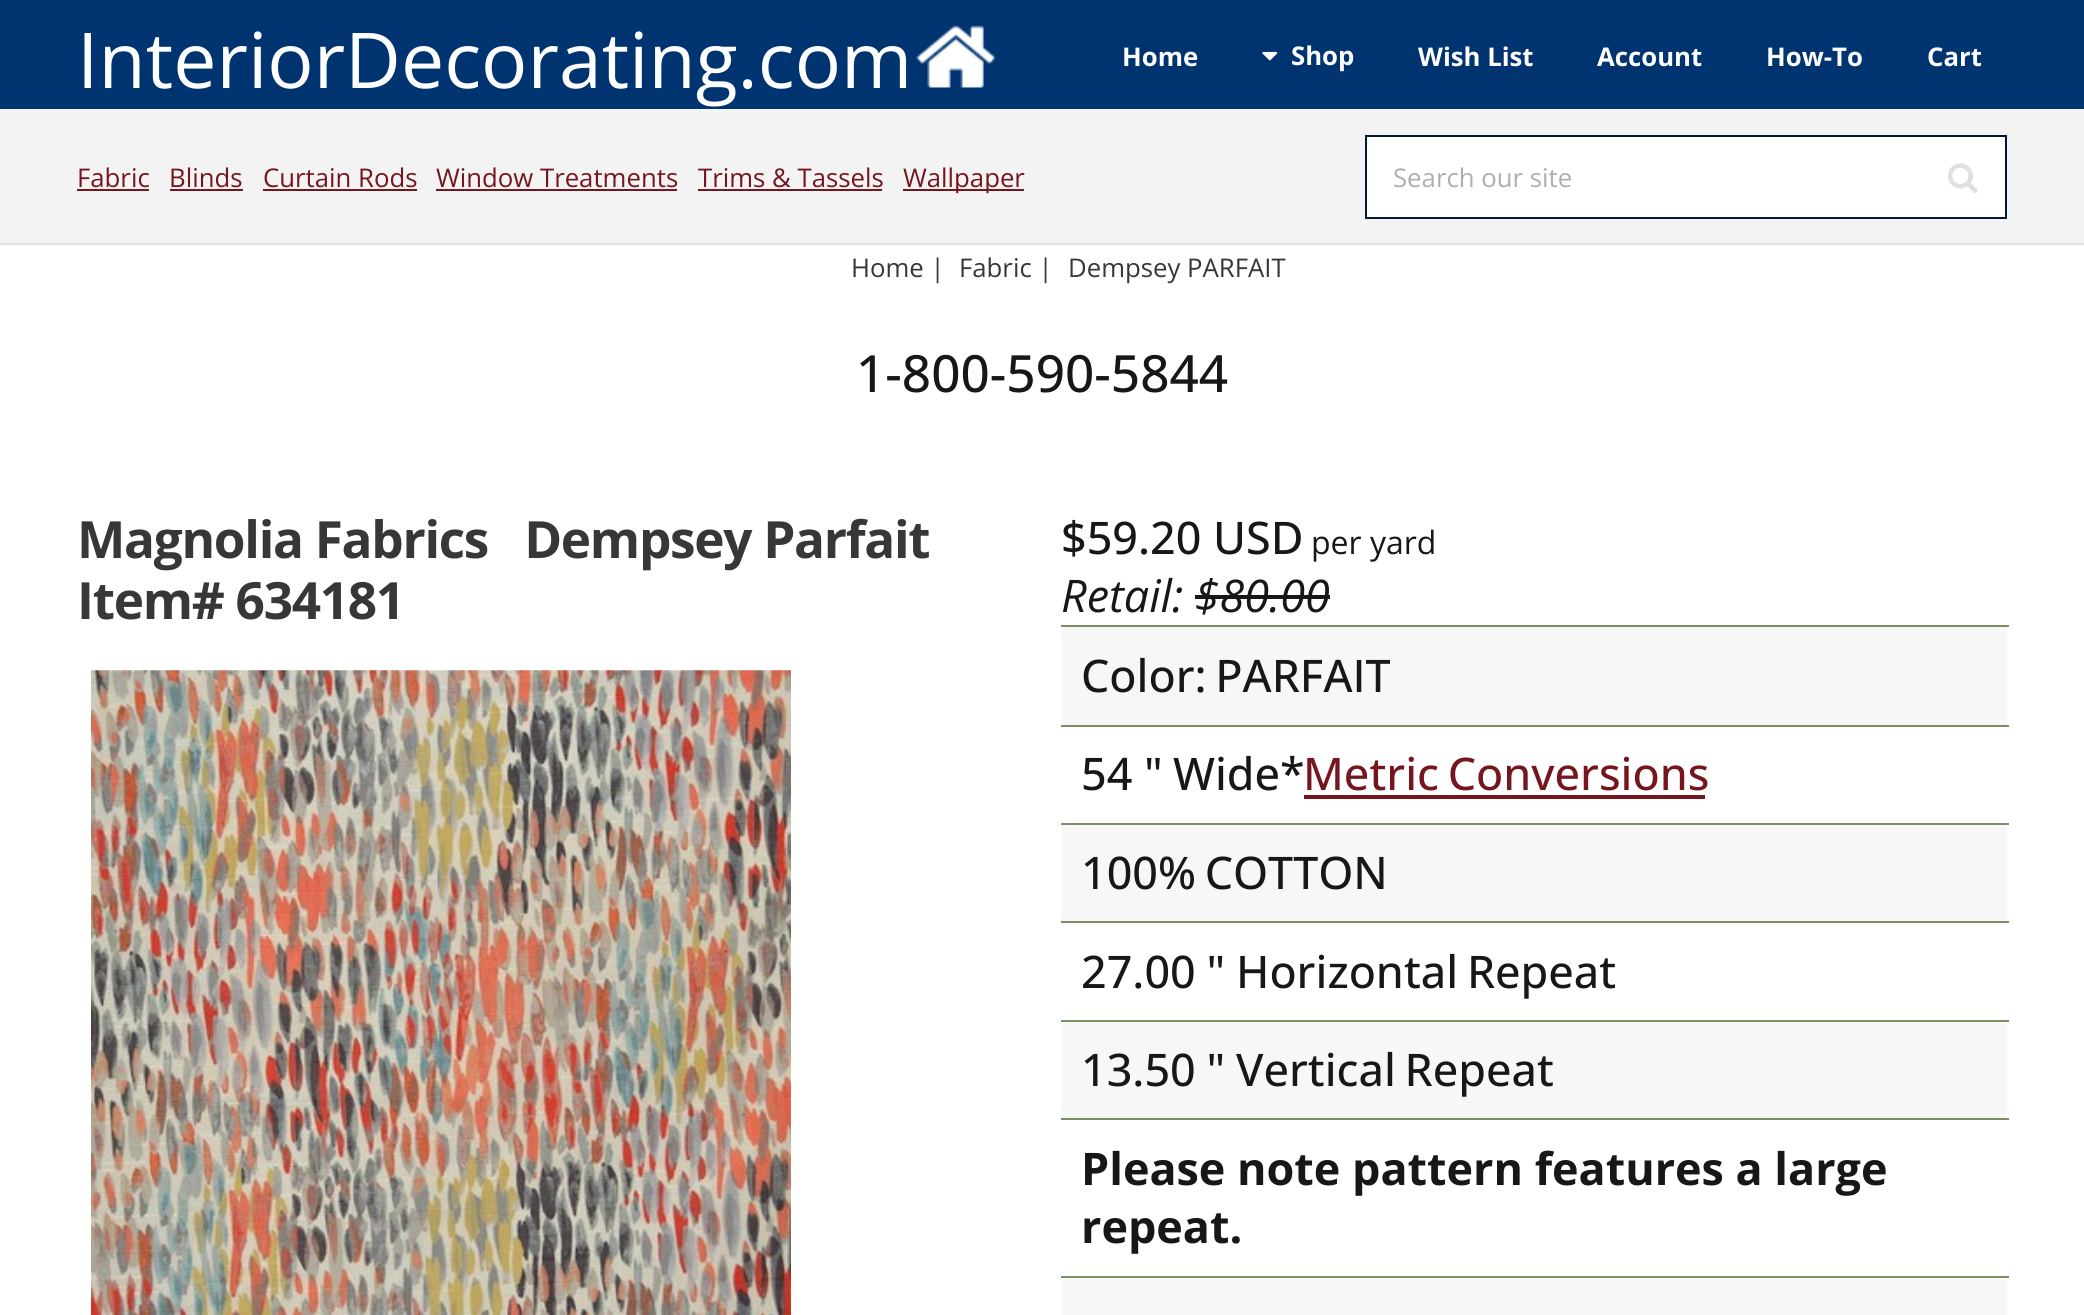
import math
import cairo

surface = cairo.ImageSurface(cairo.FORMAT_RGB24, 2084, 1315)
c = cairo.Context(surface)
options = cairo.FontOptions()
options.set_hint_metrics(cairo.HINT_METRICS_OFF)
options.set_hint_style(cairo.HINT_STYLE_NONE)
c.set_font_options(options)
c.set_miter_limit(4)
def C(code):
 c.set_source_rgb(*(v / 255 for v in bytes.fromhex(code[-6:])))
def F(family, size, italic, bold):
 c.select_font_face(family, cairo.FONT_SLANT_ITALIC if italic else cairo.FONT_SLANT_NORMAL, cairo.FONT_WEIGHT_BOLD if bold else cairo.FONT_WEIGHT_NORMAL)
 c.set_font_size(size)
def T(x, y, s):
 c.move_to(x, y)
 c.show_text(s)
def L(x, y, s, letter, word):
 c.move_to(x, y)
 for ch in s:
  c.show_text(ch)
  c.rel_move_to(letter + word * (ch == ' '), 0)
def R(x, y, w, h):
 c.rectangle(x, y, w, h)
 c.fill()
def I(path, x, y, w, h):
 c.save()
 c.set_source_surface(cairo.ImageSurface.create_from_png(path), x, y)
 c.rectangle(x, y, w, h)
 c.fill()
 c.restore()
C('ffffff')
c.paint()
C('003471')
R(0,0,2084,109)
F('Open Sans',77,0,0)
C('ffffff')
T(77,88,'InteriorDecorating.com')
I('1.png',916,25,80,63)
F('Open Sans',25.75,0,1)
T(1122,66,'Home')
I('2.png',1262,51,16,10)
T(1291,65,'Shop')
T(1418,66,'Wish List')
T(1597,66,'Account')
T(1766,66,'How-To')
T(1927,66,'Cart')
C('f3f3f3')
R(0,109,2084,134)
C('e0e0e0')
R(0,243,2084,2)
F('Open Sans',25.75,0,0)
C('75161e')
T(77,187,'Fabric')
R(77,189,72,2)
T(169,187,'Blinds')
R(170,189,73,2)
T(263,187,'Curtain Rods')
R(263,189,154,2)
T(436,187,'Window Treatments')
R(436,189,241,2)
T(698,187,'Trims & Tassels')
R(698,189,184,2)
R(903,189,121,2)
T(903,187,'Wallpaper')
C('ffffff')
R(1367,137,638,80)
I('3.png',1948,163,30,30)
c.rectangle(1366,136,640,82)
C('001833')
c.stroke()
C('aeaeae')
T(1393,187,'Search our site')
C('373737')
T(851,277,'Home |')
T(959,277,'Fabric |')
T(1068,277,'Dempsey PARFAIT')
F('Open Sans Medium',51.3,0,0)
C('171717')
T(856,392,'1-800-590-5844')
F('Open Sans',51.3,0,1)
C('373737')
L(77,558,'Magnolia Fabrics   Dempsey Parfait',-1.3,0)
L(77,619,'Item# 634181',-1.3,0)
I('4.png',91,670,700,645)
F('Open Sans Medium',44.9,0,0)
C('171717')
T(1061,554,'$59.20')
T(1213,554,'USD')
F('Open Sans',32,0,0)
T(1311,554,'per yard')
F('Open Sans',44.9,1,0)
T(1061,612,'Retail: $80.00')
R(1195,595,135,4)
C('f7f7f7')
R(1062,627,945,98)
C('7e8e64')
R(1061,625,948,2)
F('Open Sans Medium',44.9,0,0)
C('171717')
L(1081,692,'Color: PARFAIT',0,-3)
C('7e8e64')
R(1061,725,948,2)
C('171717')
T(1081,790,'54 "')
T(1173,790,'Wide*')
C('75161e')
L(1303,790,'Metric Conversions',0,-3)
R(1304,795,401,4)
C('f7f7f7')
R(1062,825,945,96)
C('7e8e64')
R(1061,823,948,2)
C('171717')
L(1081,889,'100% COTTON',0,-3)
C('7e8e64')
R(1061,921,948,2)
C('171717')
L(1081,988,'27.00 "',0,-1)
L(1236,988,'Horizontal Repeat',0,-3)
C('f7f7f7')
R(1062,1022,945,96)
C('7e8e64')
R(1061,1020,948,2)
C('171717')
L(1081,1086,'13.50 "',0,-1)
L(1236,1086,'Vertical Repeat',0,-3)
C('7e8e64')
R(1061,1118,948,2)
F('Open Sans',44.9,0,1)
C('171717')
T(1081,1185,'Please note pattern features a large')
T(1081,1243,'repeat.')
C('f7f7f7')
R(1062,1278,945,37)
C('7e8e64')
R(1061,1276,948,2)
surface.write_to_png('o.png')
